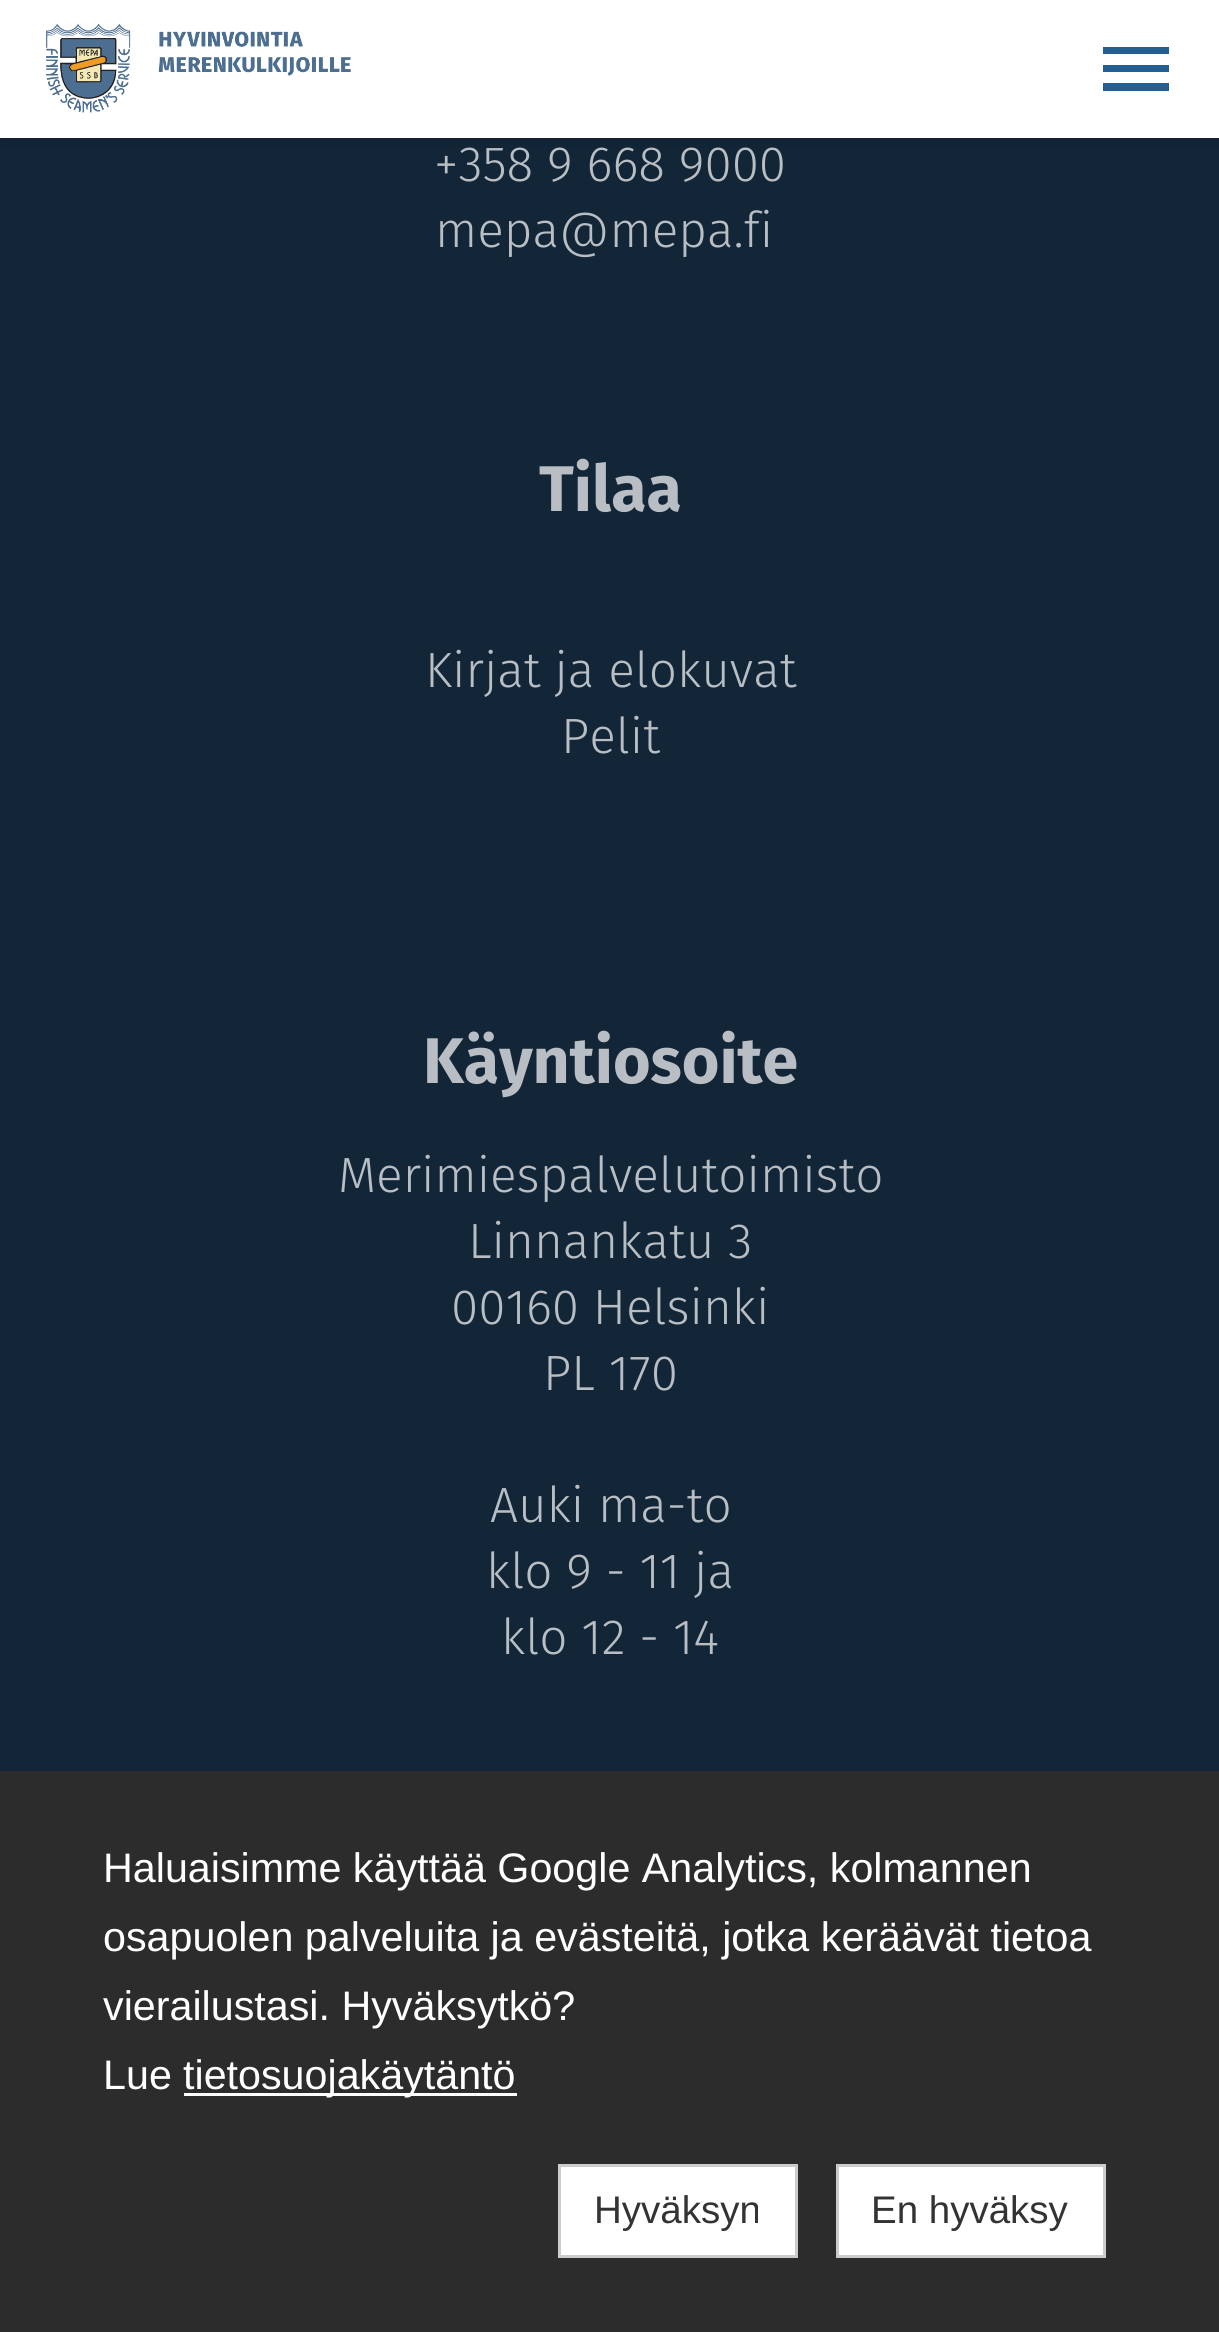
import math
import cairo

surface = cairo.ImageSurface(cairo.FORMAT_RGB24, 1219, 2332)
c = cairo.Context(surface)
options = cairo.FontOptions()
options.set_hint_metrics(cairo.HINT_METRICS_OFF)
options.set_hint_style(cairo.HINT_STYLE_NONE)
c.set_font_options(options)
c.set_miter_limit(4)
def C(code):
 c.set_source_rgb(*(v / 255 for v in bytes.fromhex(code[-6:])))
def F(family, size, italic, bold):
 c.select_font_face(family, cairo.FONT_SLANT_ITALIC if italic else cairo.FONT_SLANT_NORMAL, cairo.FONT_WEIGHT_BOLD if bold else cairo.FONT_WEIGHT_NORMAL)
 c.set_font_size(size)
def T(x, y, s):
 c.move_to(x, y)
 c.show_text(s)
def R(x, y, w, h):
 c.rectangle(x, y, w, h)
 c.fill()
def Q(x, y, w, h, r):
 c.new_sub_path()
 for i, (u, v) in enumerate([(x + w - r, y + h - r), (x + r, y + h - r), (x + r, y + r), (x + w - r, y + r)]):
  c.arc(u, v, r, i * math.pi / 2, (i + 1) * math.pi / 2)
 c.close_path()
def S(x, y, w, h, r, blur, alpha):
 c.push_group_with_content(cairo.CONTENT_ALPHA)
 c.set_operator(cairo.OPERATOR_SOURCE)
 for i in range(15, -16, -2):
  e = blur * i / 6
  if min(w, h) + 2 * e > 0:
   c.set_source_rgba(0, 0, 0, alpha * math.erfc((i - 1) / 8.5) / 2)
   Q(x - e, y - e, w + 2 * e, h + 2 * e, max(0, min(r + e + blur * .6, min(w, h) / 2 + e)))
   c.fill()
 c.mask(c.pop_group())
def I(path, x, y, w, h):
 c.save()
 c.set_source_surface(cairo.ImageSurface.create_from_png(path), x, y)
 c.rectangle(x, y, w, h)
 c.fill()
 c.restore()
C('122638')
c.paint()
C('000000')
S(0,0,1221,138,0,7,.2)
C('ffffff')
R(0,0,1219,138)
I('1.png',46,24,305,89)
C('235f91')
c.new_path()
c.move_to(1103,47)
c.line_to(1169,47)
c.line_to(1169,54)
c.line_to(1103,54)
c.close_path()
c.move_to(1103,72)
c.line_to(1103,65)
c.line_to(1169,65)
c.line_to(1169,72)
c.close_path()
c.move_to(1103,91)
c.line_to(1103,83)
c.line_to(1169,83)
c.line_to(1169,91)
c.close_path()
c.fill()
F('Fira Sans Light',49.5,0,0)
C('b8bec3')
T(434,181,'+358 9 668 9000')
T(435,247,'mepa@mepa.fi')
F('Fira Sans',64.5,0,1)
T(539,511,'Tilaa')
F('Fira Sans Light',49.5,0,0)
T(425,687,'Kirjat ja elokuvat')
T(561,753,'Pelit')
F('Fira Sans',64.5,0,1)
T(423,1083,'Käyntiosoite')
F('Fira Sans Light',49.5,0,0)
T(338,1192,'Merimiespalvelutoimisto')
T(468,1258,'Linnankatu 3')
T(451,1324,'00160 Helsinki')
T(543,1390,'PL 170')
T(490,1522,'Auki ma-to')
T(486,1588,'klo 9 - 11 ja')
T(501,1654,'klo 12 - 14')
C('2c2c2c')
R(0,1771,1219,561)
F('Liberation Sans',41.25,0,0)
C('ffffff')
T(103,1882,'Haluaisimme käyttää Google Analytics, kolmannen')
T(103,1951,'osapuolen palveluita ja evästeitä, jotka keräävät tietoa')
T(103,2020,'vierailustasi. Hyväksytkö?')
T(103,2089,'Lue')
R(184,2093,333,3)
T(183,2089,'tietosuojakäytäntö')
c.rectangle(559.5,2165.5,237,91)
c.fill_preserve()
C('cccccc')
c.set_line_width(3)
c.stroke()
F('Liberation Sans',38.5,0,0)
C('333333')
T(594,2223,'Hyväksyn')
C('ffffff')
c.rectangle(837.5,2165.5,267,91)
c.fill_preserve()
C('cccccc')
c.stroke()
C('333333')
T(871,2223,'En hyväksy')
surface.write_to_png('o.png')
